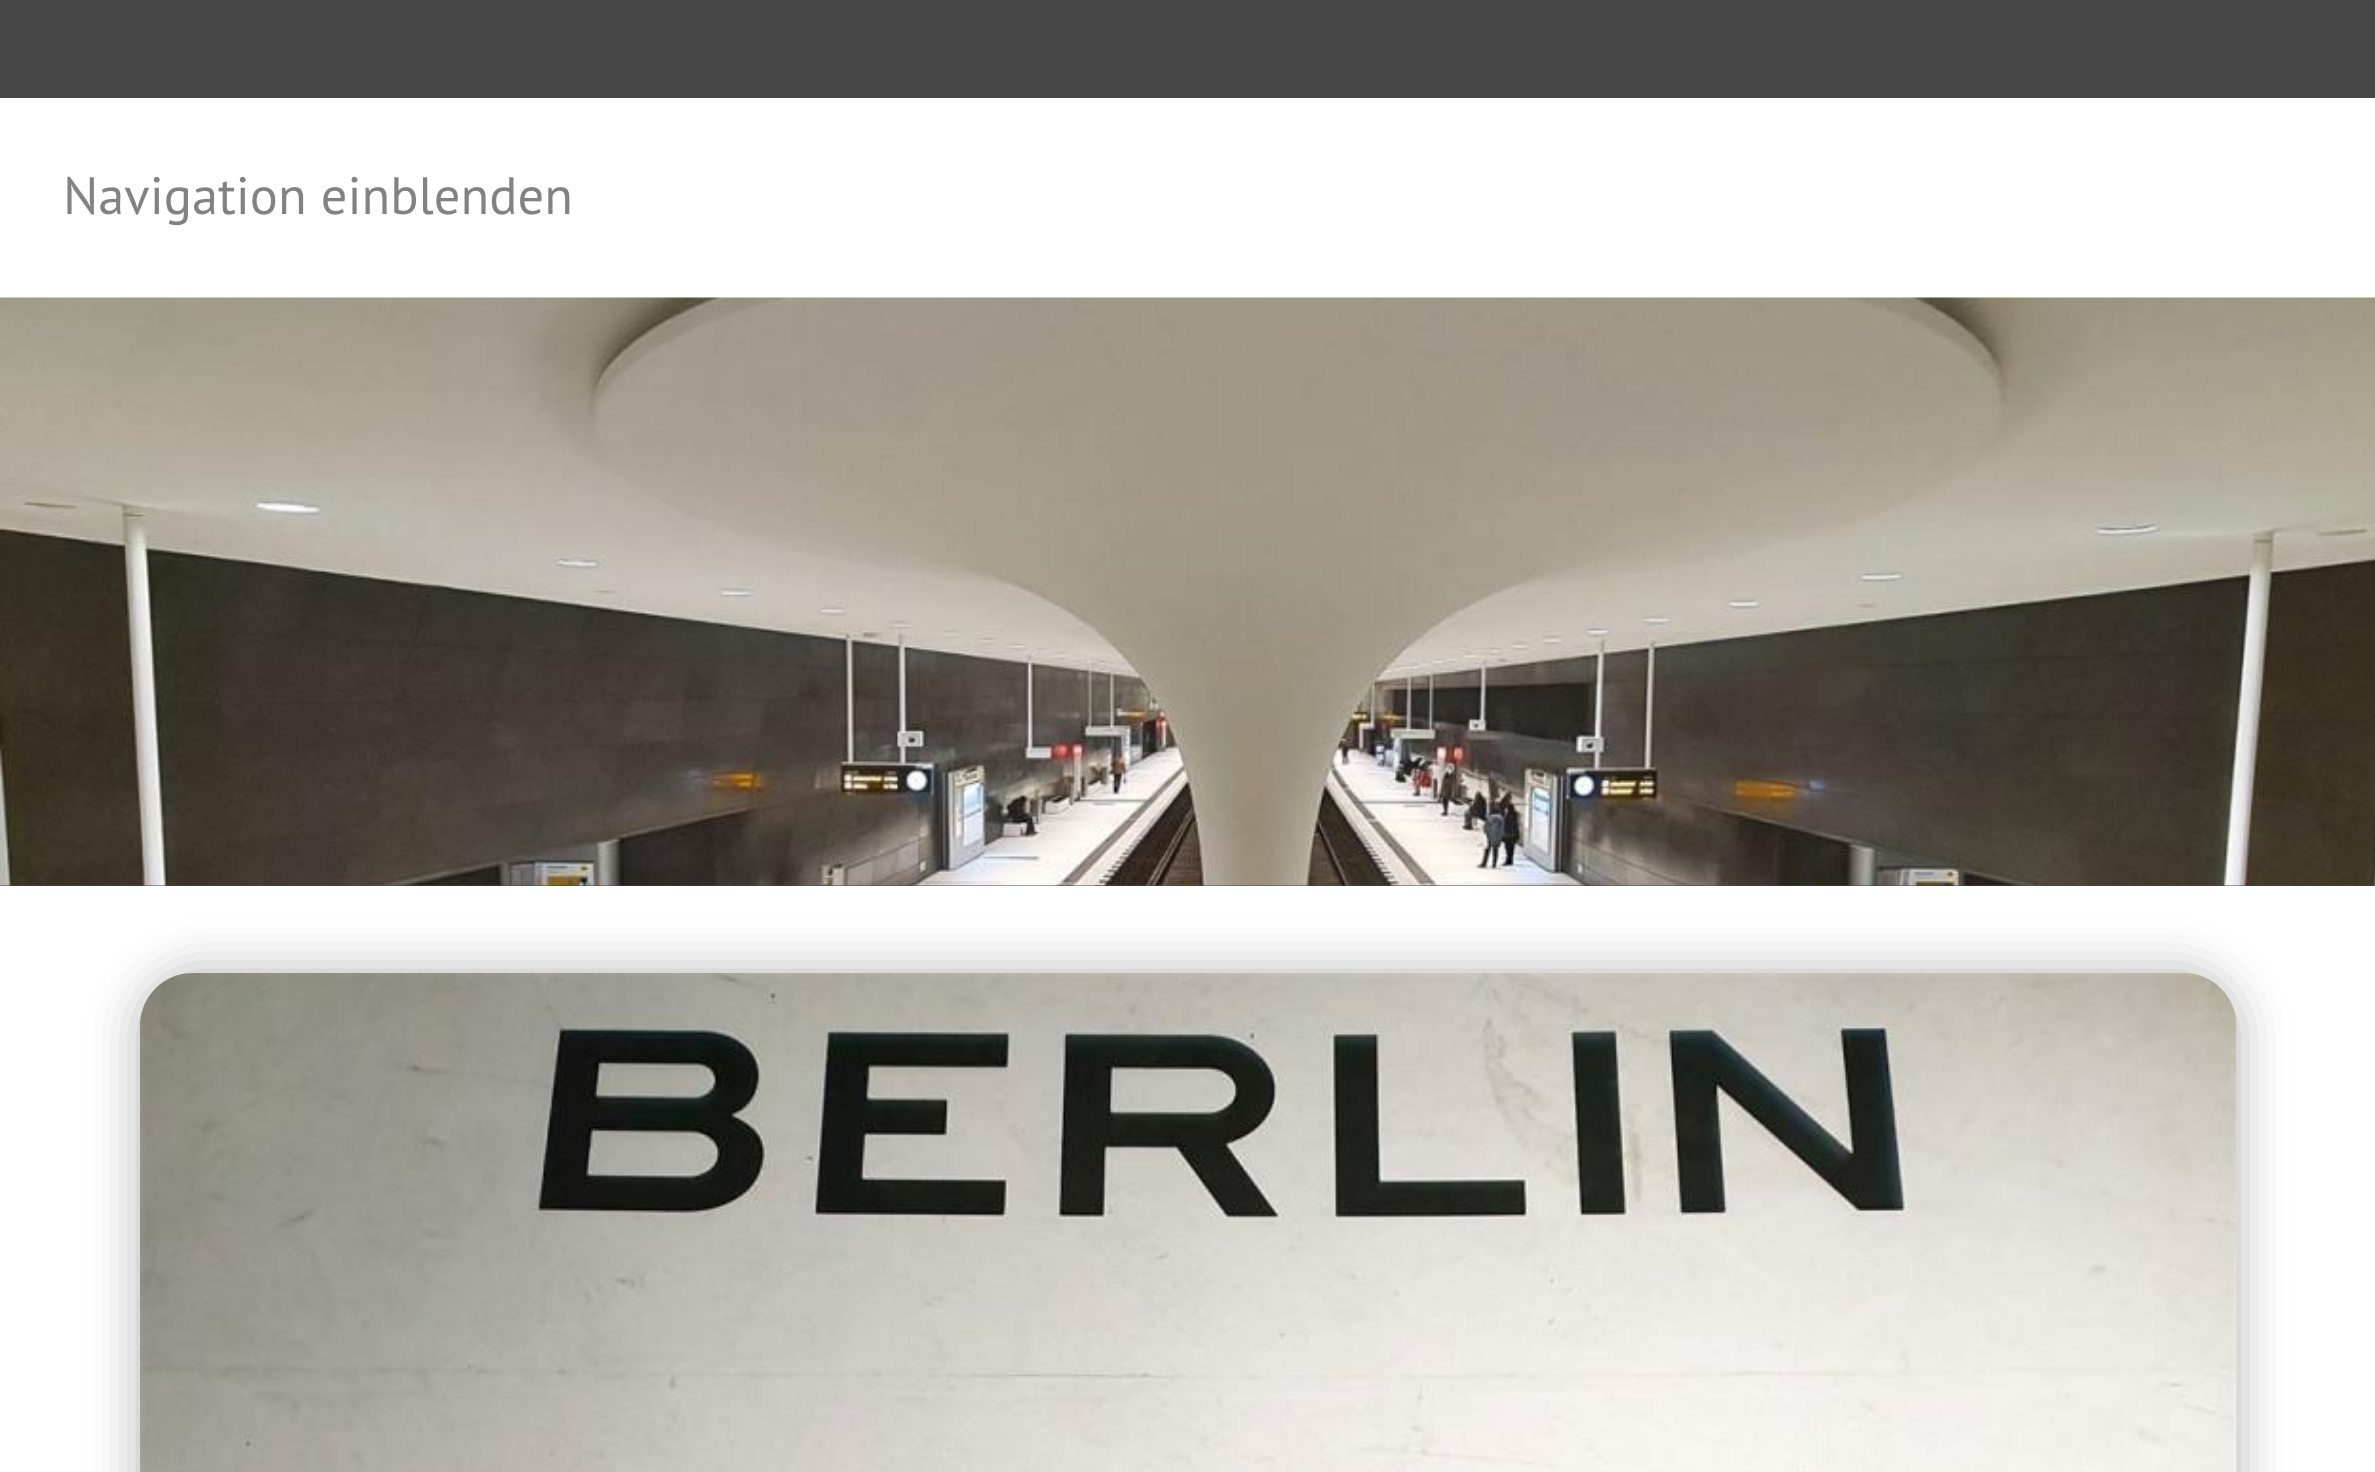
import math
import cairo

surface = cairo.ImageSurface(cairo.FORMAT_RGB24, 2375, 1472)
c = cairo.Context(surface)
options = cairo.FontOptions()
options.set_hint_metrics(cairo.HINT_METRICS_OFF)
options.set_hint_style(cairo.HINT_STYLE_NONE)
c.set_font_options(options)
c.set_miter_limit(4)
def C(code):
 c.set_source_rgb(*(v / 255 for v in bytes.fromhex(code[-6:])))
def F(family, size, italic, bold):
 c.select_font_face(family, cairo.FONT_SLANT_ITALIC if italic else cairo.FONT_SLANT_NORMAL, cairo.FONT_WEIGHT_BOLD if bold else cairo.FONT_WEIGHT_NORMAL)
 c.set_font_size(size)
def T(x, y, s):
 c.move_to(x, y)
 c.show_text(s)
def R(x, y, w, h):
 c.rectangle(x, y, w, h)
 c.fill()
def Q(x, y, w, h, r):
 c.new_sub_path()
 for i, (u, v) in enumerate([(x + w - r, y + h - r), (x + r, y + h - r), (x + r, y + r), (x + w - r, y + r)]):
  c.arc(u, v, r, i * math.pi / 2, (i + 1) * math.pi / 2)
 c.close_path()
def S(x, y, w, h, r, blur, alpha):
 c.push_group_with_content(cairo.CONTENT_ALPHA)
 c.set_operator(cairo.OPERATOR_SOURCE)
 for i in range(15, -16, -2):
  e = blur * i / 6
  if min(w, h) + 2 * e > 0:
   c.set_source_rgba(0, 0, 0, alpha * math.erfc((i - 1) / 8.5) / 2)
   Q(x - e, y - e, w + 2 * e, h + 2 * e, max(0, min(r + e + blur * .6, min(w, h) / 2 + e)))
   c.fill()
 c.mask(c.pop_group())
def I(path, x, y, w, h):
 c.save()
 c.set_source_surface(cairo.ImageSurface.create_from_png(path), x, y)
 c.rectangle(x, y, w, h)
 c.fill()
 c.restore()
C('464646')
c.paint()
C('ffffff')
R(0,98,2375,200)
F('PT Sans',52.5,0,0)
C('828282')
T(63,214,'Navigation einblenden')
I('1.png',0,297,2375,589)
C('ffffff')
R(0,886,2375,586)
C('000000')
S(140,973,2097,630,53,26,.3)
I('2.png',140,973,2097,499)
surface.write_to_png('o.png')
